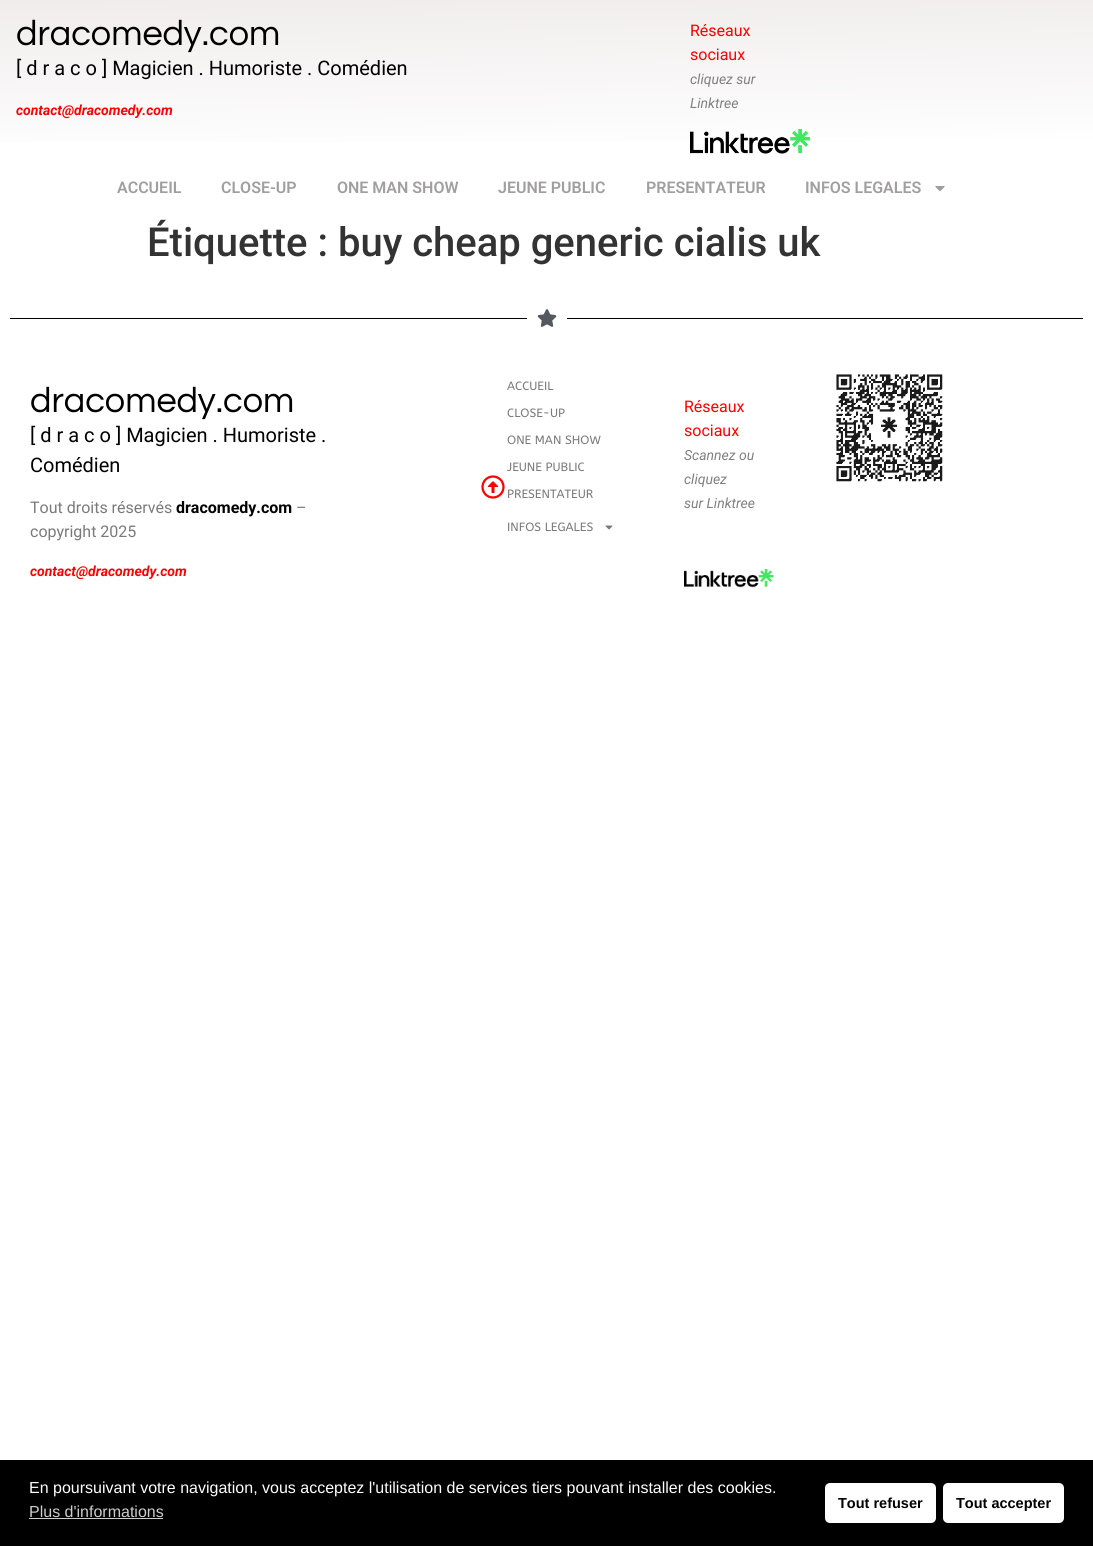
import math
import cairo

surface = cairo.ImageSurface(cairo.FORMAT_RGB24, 1093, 1546)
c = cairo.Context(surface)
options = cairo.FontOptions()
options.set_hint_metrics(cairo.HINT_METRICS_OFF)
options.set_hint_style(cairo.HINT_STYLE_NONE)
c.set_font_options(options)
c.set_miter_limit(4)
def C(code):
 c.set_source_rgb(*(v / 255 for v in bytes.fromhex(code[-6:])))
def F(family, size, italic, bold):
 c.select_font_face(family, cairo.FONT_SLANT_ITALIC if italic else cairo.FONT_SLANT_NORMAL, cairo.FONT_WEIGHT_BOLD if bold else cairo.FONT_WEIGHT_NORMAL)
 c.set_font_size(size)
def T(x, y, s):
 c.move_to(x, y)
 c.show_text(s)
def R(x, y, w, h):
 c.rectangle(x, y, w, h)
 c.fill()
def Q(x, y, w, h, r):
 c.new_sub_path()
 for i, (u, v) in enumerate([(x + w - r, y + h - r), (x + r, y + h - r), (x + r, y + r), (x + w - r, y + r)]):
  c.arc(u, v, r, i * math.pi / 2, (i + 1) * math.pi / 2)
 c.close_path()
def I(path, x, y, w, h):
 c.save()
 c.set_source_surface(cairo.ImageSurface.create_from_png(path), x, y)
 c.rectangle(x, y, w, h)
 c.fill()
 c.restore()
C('ffffff')
c.paint()
gradient = cairo.LinearGradient(545,-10,548,175)
gradient.add_color_stop_rgba(0,0.941,0.925,0.925,1)
gradient.add_color_stop_rgba(.89,1,1,1,1)
c.set_source(gradient)
R(0,0,1093,142)
F('Questrial',36,0,0)
C('000000')
T(16,45,'dracomedy.com')
F('Roboto',20,0,0)
T(16,75,'[ d r a c o ] Magicien . Humoriste . Comédien')
F('Roboto',14,1,1)
C('ff0000')
T(16,115,'contact@dracomedy.com')
F('Roboto',16,0,0)
T(690,36,'Réseaux')
T(690,60,'sociaux')
F('Roboto',14,1,0)
C('808080')
T(690,84,'cliquez sur')
T(690,108,'Linktree')
I('1.png',690,129,120,25)
F('Roboto SemiBold',16,0,0)
C('a09e9e')
T(117,193,'ACCUEIL')
T(221,193,'CLOSE-UP')
T(337,193,'ONE MAN SHOW')
T(498,193,'JEUNE PUBLIC')
T(646,193,'PRESENTATEUR')
T(805,193,'INFOS LEGALES')
I('2.png',935,186,10,6)
F('Roboto Medium',40,0,0)
C('333333')
T(147,256,'Étiquette : buy cheap generic cialis uk')
C('000000')
R(10,318,517,1)
I('3.png',537,309,20,18)
R(567,318,516,1)
F('Questrial',36,0,0)
T(30,412,'dracomedy.com')
F('Roboto',20,0,0)
T(30,442,'[ d r a c o ] Magicien . Humoriste .')
T(30,472,'Comédien')
F('Roboto',16,0,0)
C('7a7a7a')
T(30,513,'Tout droits réservés')
F('Roboto',16,0,1)
C('000000')
T(176,513,'dracomedy.com')
F('Roboto',16,0,0)
C('7a7a7a')
T(296,513,'–')
T(30,537,'copyright 2025')
F('Roboto',14,1,1)
C('ff0000')
T(30,576,'contact@dracomedy.com')
I('4.png',481,475,24,24)
F('ABeeZee',12,0,0)
C('7a7a7a')
T(507,390,'ACCUEIL')
T(507,417,'CLOSE-UP')
T(507,444,'ONE MAN SHOW')
T(507,471,'JEUNE PUBLIC')
T(507,498,'PRESENTATEUR')
T(507,531,'INFOS LEGALES')
I('5.png',605,525,8,5)
F('Roboto',16,0,0)
C('ff0000')
T(684,412,'Réseaux')
T(684,436,'sociaux')
F('Roboto',14,1,0)
C('808080')
T(684,460,'Scannez ou')
T(684,484,'cliquez')
T(684,508,'sur Linktree')
I('6.png',684,569,90,19)
I('7.png',836,374,107,108)
C('000000')
R(0,1460,1093,86)
F('Liberation Sans',16,0,0)
C('ffffff')
T(29,1493,'En poursuivant votre navigation, vous acceptez l\'utilisation de services tiers pouvant installer des cookies.')
C('cccccc')
T(29,1517,'Plus d\'informations')
R(29,1518,134,1)
C('ffffff')
Q(825,1483,111,40,5)
c.fill()
F('Liberation Sans',14.5,0,1)
C('000000')
T(838,1508,'Tout refuser')
C('ffffff')
Q(943,1483,121,40,5)
c.fill()
C('000000')
T(956,1508,'Tout accepter')
surface.write_to_png('o.png')
